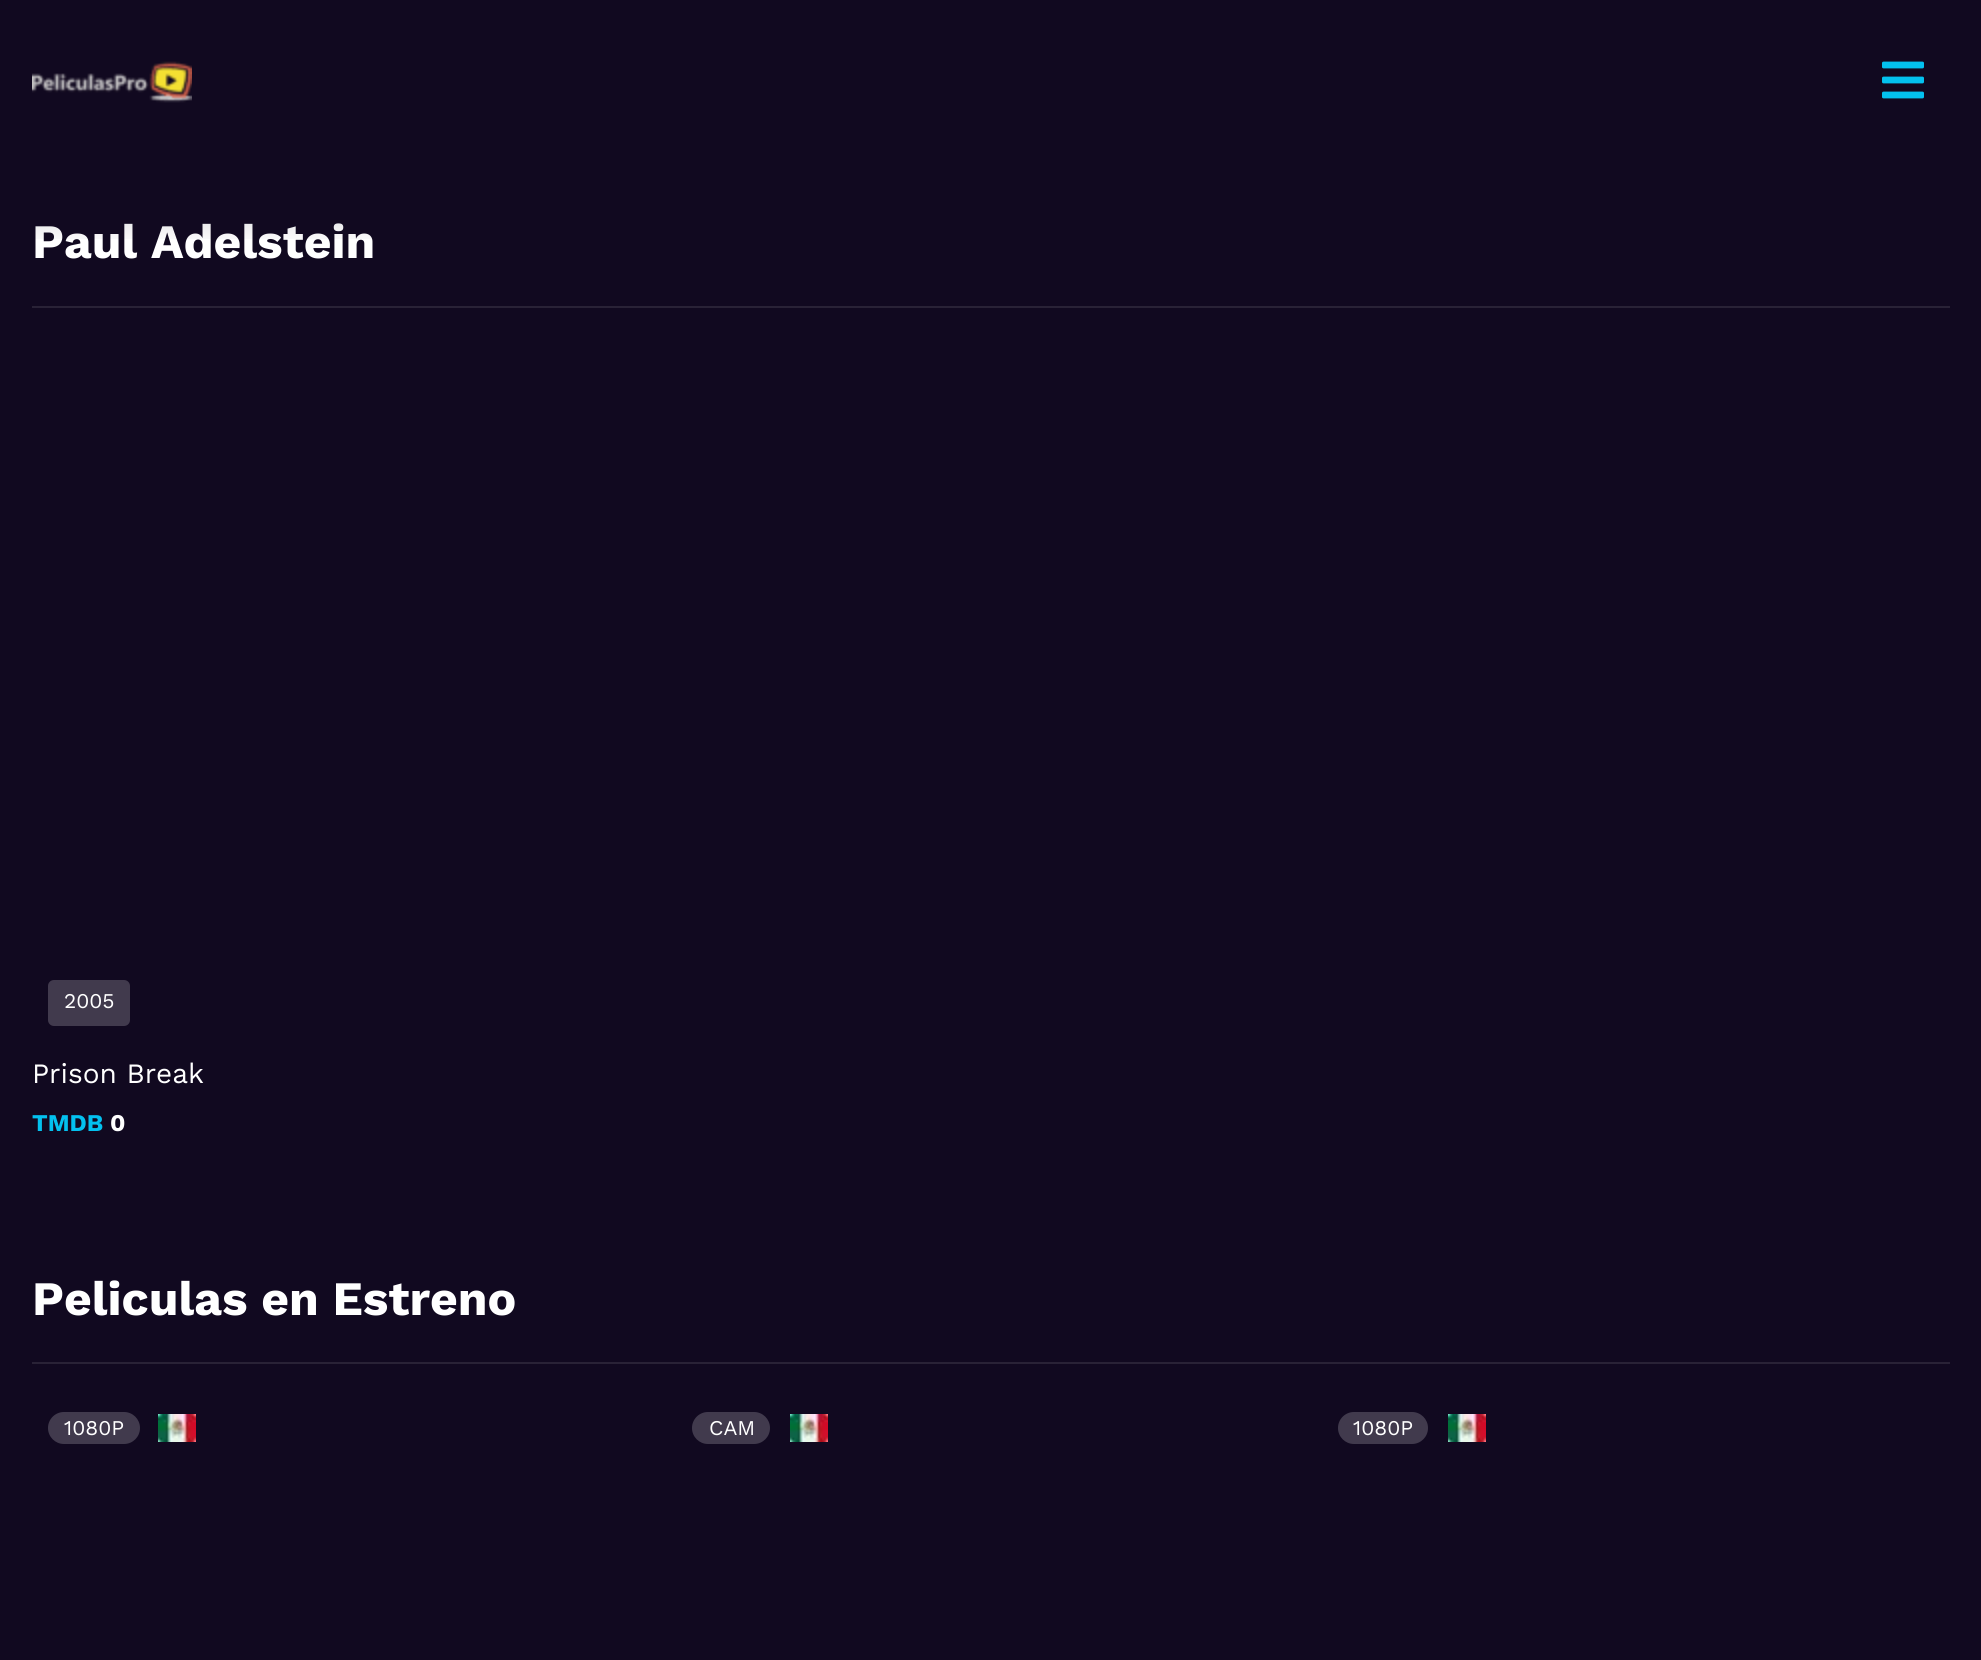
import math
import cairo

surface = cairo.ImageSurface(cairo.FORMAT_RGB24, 1981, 1660)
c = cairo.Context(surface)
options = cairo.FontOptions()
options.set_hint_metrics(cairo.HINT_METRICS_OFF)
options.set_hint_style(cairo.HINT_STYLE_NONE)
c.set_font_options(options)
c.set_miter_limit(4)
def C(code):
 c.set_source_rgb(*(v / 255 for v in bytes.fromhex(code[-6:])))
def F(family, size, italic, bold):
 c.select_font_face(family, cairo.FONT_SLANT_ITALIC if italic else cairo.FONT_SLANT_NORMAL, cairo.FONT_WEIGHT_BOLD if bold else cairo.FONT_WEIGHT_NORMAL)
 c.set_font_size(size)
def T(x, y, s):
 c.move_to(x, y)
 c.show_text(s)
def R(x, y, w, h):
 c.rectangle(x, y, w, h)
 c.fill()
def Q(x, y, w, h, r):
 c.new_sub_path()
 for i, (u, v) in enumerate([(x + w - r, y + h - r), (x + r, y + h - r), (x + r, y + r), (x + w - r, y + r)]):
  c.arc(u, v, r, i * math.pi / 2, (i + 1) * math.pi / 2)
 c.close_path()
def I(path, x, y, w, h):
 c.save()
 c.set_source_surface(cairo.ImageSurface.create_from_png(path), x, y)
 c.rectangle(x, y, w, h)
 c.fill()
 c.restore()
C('110920')
c.paint()
I('1.png',32,61,160,42)
I('2.png',1882,61,42,38)
F('Work Sans',48,0,1)
C('ffffff')
T(32,258,'Paul Adelstein')
gradient = cairo.LinearGradient(991,0,991,244)
gradient.add_color_stop_rgba(0,0.067,0.035,0.125,1)
gradient.add_color_stop_rgba(1,0.067,0.035,0.125,0)
c.set_source(gradient)
R(35,223,337,16)
C('292236')
R(32,306,1918,2)
C('413a4d')
Q(48,980,82,46,6)
c.fill()
F('Work Sans',21,0,0)
C('ffffff')
T(64,1008,'2005')
F('Work Sans',28,0,0)
T(32,1083,'Prison Break')
F('Work Sans',24,0,1)
C('03c1ef')
T(32,1131,'TMDB')
C('ffffff')
T(110,1131,'0')
C('292236')
R(32,1362,1918,2)
F('Work Sans',48,0,1)
C('ffffff')
T(32,1315,'Peliculas en Estreno')
C('413a4d')
Q(48,1412,92,32,16)
c.fill()
F('Work Sans',21,0,0)
C('ffffff')
T(64,1435,'1080P')
I('3.png',158,1414,38,28)
C('413a4d')
Q(692,1412,78,32,16)
c.fill()
C('ffffff')
T(709,1435,'CAM')
I('3.png',790,1414,38,28)
C('413a4d')
Q(1338,1412,90,32,16)
c.fill()
C('ffffff')
T(1353,1435,'1080P')
I('3.png',1448,1414,38,28)
surface.write_to_png('o.png')
